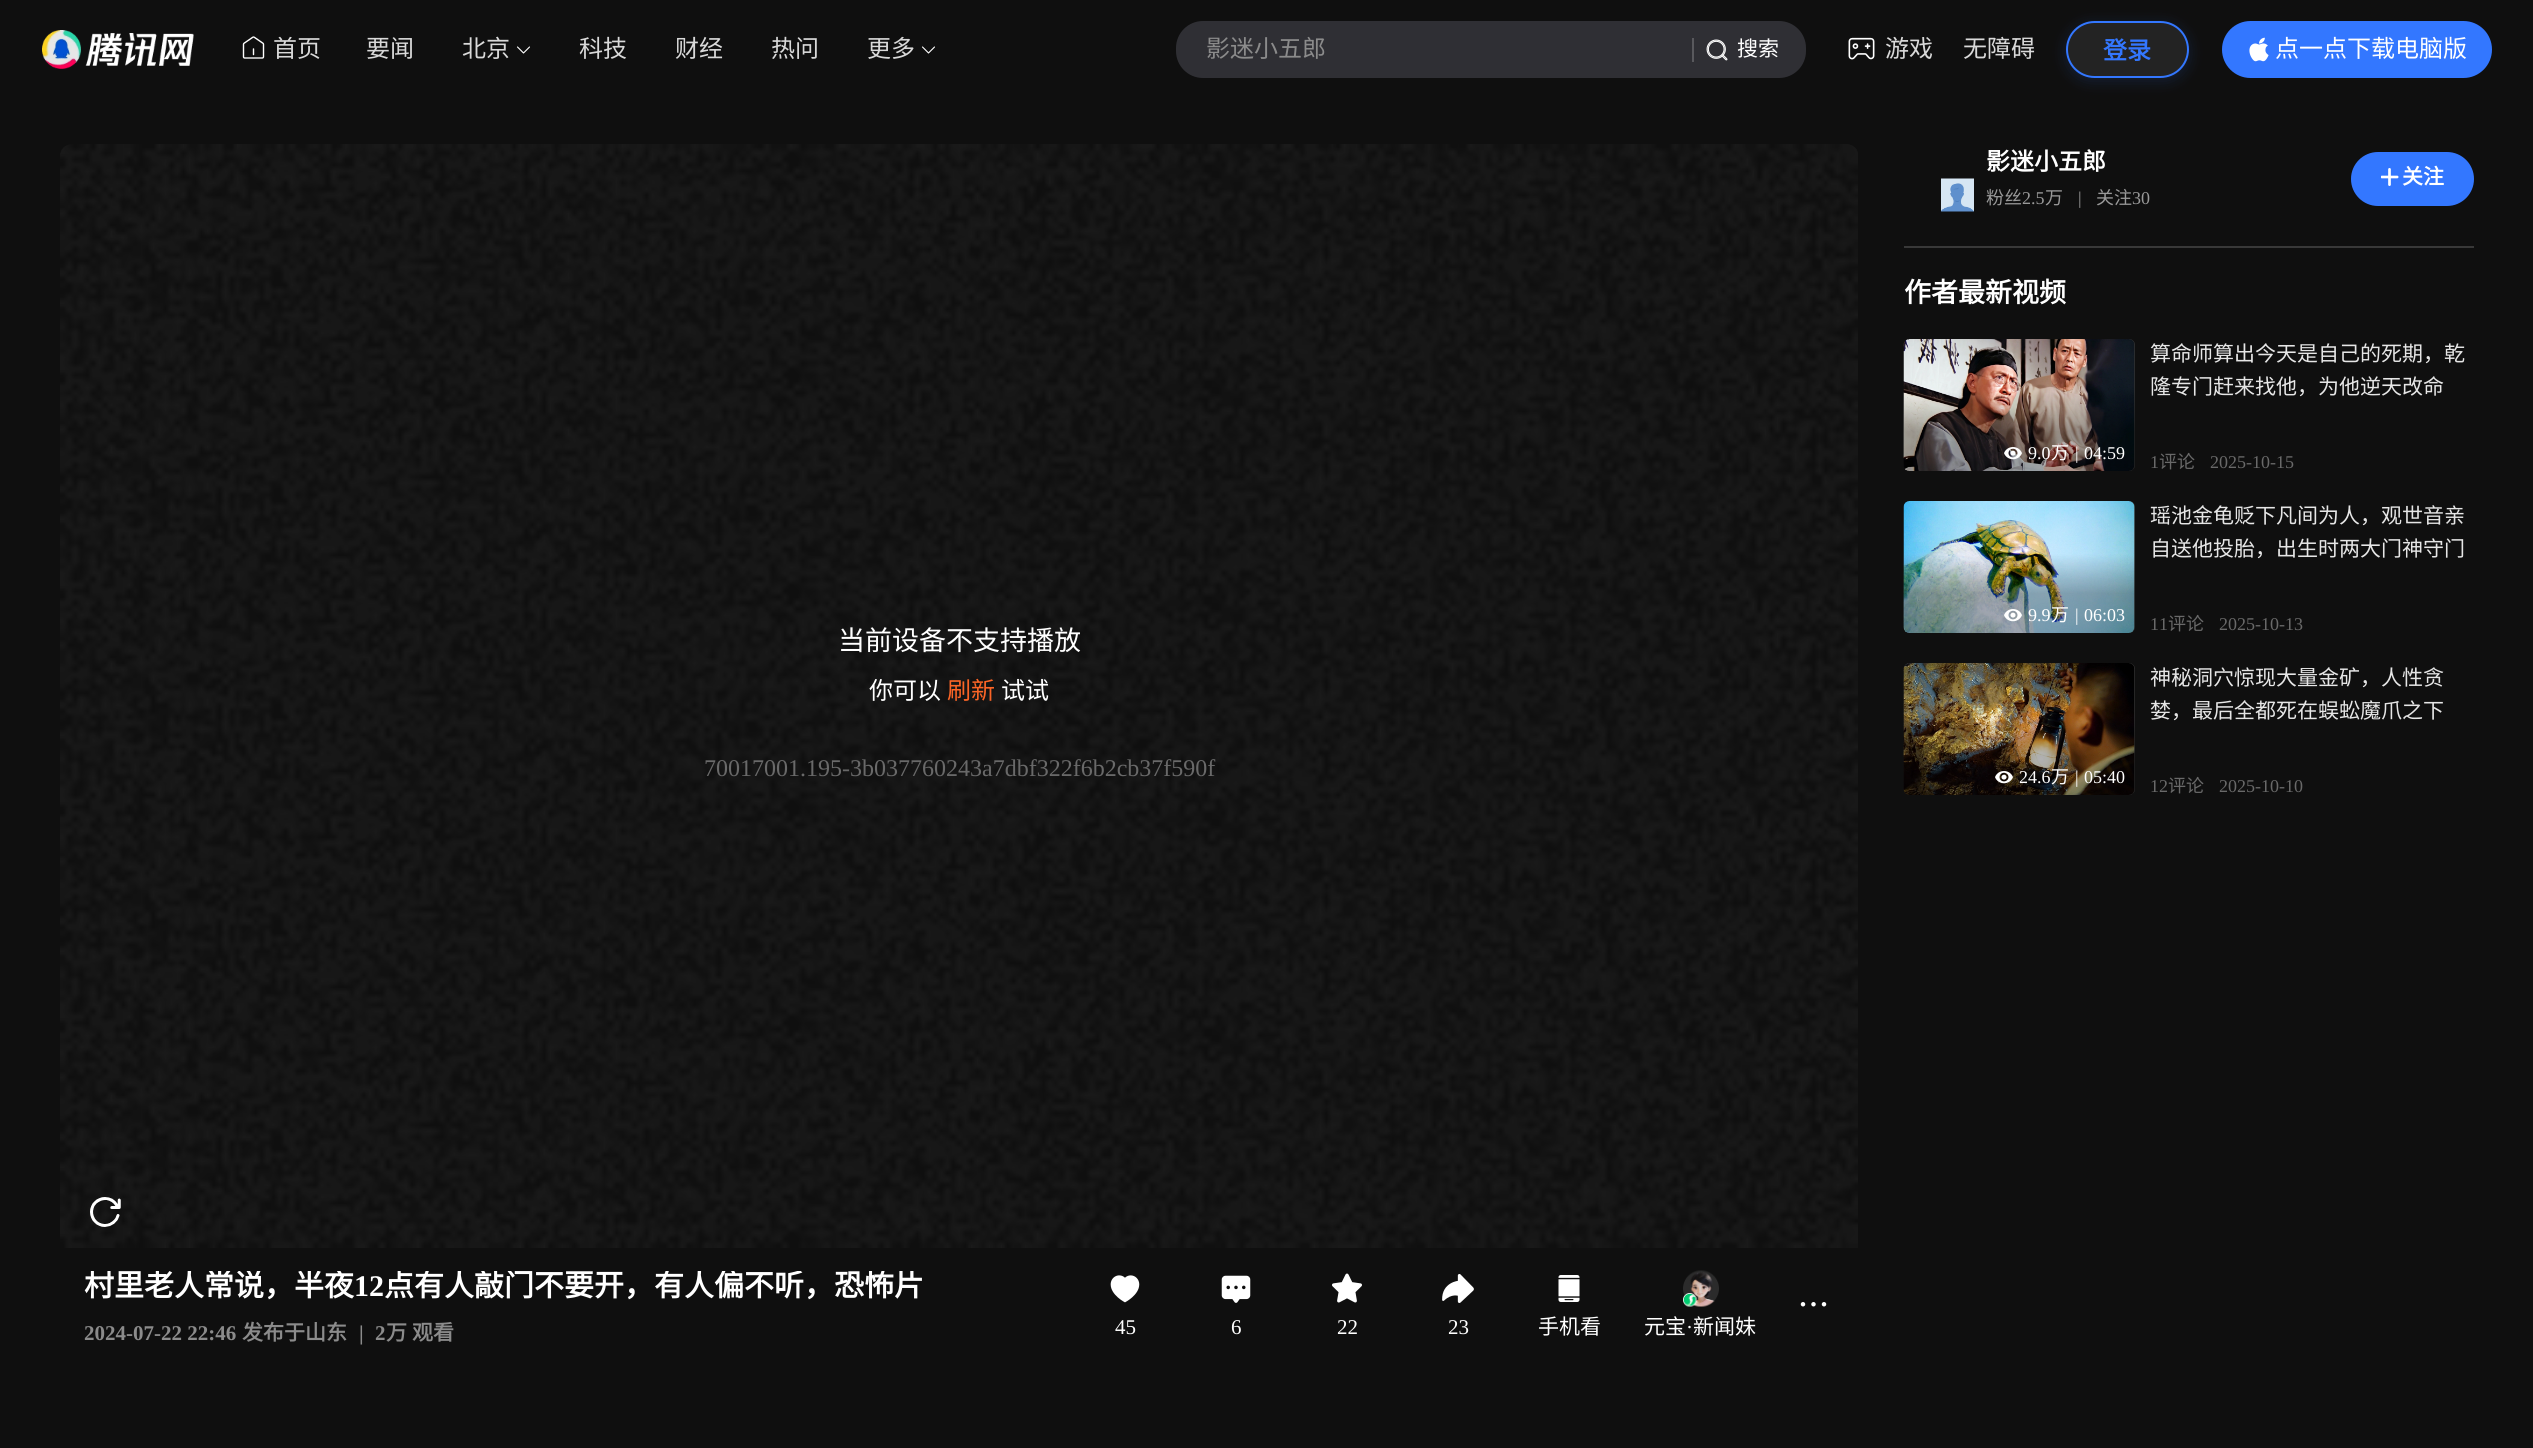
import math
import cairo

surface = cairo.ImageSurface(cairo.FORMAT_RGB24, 2533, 1448)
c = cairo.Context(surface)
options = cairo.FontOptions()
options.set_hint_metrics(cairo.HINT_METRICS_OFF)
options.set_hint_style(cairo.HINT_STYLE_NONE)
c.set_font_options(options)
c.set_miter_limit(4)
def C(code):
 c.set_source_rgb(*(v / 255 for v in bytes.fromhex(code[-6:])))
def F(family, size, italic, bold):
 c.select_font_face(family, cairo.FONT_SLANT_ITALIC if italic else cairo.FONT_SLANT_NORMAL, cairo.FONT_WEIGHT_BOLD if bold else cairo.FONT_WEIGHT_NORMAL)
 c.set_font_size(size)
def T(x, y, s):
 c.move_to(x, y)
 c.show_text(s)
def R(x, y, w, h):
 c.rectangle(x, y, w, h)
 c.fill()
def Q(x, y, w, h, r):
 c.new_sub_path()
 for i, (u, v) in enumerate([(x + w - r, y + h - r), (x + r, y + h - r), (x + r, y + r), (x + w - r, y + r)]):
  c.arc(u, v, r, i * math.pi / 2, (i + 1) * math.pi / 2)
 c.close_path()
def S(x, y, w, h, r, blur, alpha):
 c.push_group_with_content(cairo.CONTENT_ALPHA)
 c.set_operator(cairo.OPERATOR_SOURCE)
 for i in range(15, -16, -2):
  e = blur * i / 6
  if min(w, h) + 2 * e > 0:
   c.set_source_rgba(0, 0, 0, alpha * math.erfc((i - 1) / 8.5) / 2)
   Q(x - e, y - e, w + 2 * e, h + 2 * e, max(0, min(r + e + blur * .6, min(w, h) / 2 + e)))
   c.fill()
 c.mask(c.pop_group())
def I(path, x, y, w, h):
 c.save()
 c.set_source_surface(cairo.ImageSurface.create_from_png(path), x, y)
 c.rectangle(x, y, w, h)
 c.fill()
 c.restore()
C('0f0f0f')
c.paint()
I('1.png',42,30,152,39)
I('2.png',242,36,23,23)
F('Noto Sans CJK SC',24,0,0)
C('d9d9d9')
T(273,57,'首页')
T(366,57,'要闻')
T(462,57,'北京')
c.new_path()
c.move_to(529.5,47)
c.line_to(523.5,53)
c.line_to(517.5,47)
C('ffffff')
c.set_line_width(1.1)
c.set_line_cap(cairo.LINE_CAP_ROUND)
c.set_line_join(cairo.LINE_JOIN_ROUND)
c.stroke()
C('d9d9d9')
T(579,57,'科技')
T(675,57,'财经')
T(771,57,'热问')
T(867,57,'更多')
c.new_path()
c.move_to(934.5,47)
c.line_to(928.5,53)
c.line_to(922.5,47)
C('ffffff')
c.stroke()
C('2f2f34')
Q(1176,21,630,57,27)
c.fill()
C('8b8b8b')
T(1206,57,'影迷小五郎')
C('59595d')
R(1692,38,2,24)
I('3.png',1706,39,22,22)
F('Noto Sans CJK SC',21,0,0)
C('ffffff')
T(1737,56,'搜索')
I('4.png',1848,37,27,23)
F('Noto Sans CJK SC',24,0,0)
C('d9d9d9')
T(1885,57,'游戏')
T(1963,57,'无障碍')
c.save()
c.set_fill_rule(cairo.FILL_RULE_EVEN_ODD)
c.new_path()
c.move_to(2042,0)
c.line_to(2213,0)
c.line_to(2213,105)
c.line_to(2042,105)
c.close_path()
c.move_to(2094.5,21)
c.line_to(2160.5,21)
c.curve_to(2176,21,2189,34,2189,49.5)
c.curve_to(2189,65,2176,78,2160.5,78)
c.line_to(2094.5,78)
c.curve_to(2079,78,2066,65,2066,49.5)
c.curve_to(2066,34,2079,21,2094.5,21)
c.close_path()
c.clip()
C('3377ff')
S(2066,24,123,57,28.5,7.5,.16)
c.restore()
c.set_source_rgba(0.851,0.851,0.851,0.1)
Q(2067,22,121,55,27.5)
c.fill_preserve()
C('3377ff')
c.set_line_width(2)
c.set_line_cap(cairo.LINE_CAP_BUTT)
c.set_line_join(cairo.LINE_JOIN_MITER)
c.stroke()
F('Noto Sans CJK SC',24,0,1)
T(2103,59,'登录')
Q(2222,21,270,57,28.5)
c.fill()
I('5.png',2249,37,20,25)
F('Noto Sans CJK SC',24,0,0)
C('ffffff')
T(2275,57,'点一点下载电脑版')
F('Noto Sans CJK SC',24,0,1)
T(1986,170,'影迷小五郎')
F('Noto Sans CJK SC',18,0,0)
C('999999')
T(1986,204,'粉丝')
F('Liberation Serif',18,0,0)
T(2022,204,'2.5')
F('Noto Sans CJK SC',18,0,0)
T(2045,204,'万')
F('Liberation Serif',18,0,0)
T(2078,204,'|')
F('Noto Sans CJK SC',18,0,0)
T(2096,204,'关注')
F('Liberation Serif',18,0,0)
T(2132,204,'30')
C('3377ff')
Q(2351,152,123,54,27)
c.fill()
I('6.png',2381,168,18,18)
F('Noto Sans CJK SC',21,0,1)
C('ffffff')
T(2402,184,'关注')
I('7.png',1941,178,33,34)
C('383838')
R(1904,246,570,2)
F('Noto Sans CJK SC',27,0,1)
C('ffffff')
T(1904,302,'作者最新视频')
C('333333')
Q(1904,339,231,132,6)
c.fill()
I('8.png',1903,339,232,132)
gradient = cairo.LinearGradient(2019,471,2019,339)
gradient.add_color_stop_rgba(.3,0,0,0,.3)
gradient.add_color_stop_rgba(.6,0,0,0,0)
c.set_source(gradient)
Q(1904,339,231,132,6)
c.fill()
I('9.png',2004,447,18,13)
F('Liberation Serif',18,0,0)
C('ffffff')
T(2028,459,'9.0')
F('Noto Sans CJK SC',18,0,0)
T(2051,459,'万')
F('Liberation Serif',18,0,0)
T(2075,459,'|')
T(2084,459,'04:59')
F('Noto Sans CJK SC',21,0,0)
C('e6e6e6')
T(2150,361,'算命师算出今天是自己的死期，乾')
T(2150,394,'隆专门赶来找他，为他逆天改命')
F('Liberation Serif',18,0,0)
C('696969')
T(2150,468,'1')
F('Noto Sans CJK SC',18,0,0)
T(2159,468,'评论')
F('Liberation Serif',18,0,0)
T(2210,468,'2025-10-15')
C('333333')
Q(1904,501,231,132,6)
c.fill()
I('10.png',1903,501,232,132)
gradient = cairo.LinearGradient(2019,633,2019,501)
gradient.add_color_stop_rgba(.3,0,0,0,.3)
gradient.add_color_stop_rgba(.6,0,0,0,0)
c.set_source(gradient)
Q(1904,501,231,132,6)
c.fill()
I('11.png',2004,609,18,13)
C('ffffff')
T(2028,621,'9.9')
F('Noto Sans CJK SC',18,0,0)
T(2051,621,'万')
F('Liberation Serif',18,0,0)
T(2075,621,'|')
T(2084,621,'06:03')
F('Noto Sans CJK SC',21,0,0)
C('e6e6e6')
T(2150,523,'瑶池金龟贬下凡间为人，观世音亲')
T(2150,556,'自送他投胎，出生时两大门神守门')
F('Liberation Serif',18,0,0)
C('696969')
T(2150,630,'11')
F('Noto Sans CJK SC',18,0,0)
T(2168,630,'评论')
F('Liberation Serif',18,0,0)
T(2219,630,'2025-10-13')
C('333333')
Q(1904,663,231,132,6)
c.fill()
I('12.png',1903,663,232,132)
gradient = cairo.LinearGradient(2019,795,2019,663)
gradient.add_color_stop_rgba(.3,0,0,0,.3)
gradient.add_color_stop_rgba(.6,0,0,0,0)
c.set_source(gradient)
Q(1904,663,231,132,6)
c.fill()
I('13.png',1995,771,18,13)
C('ffffff')
T(2019,783,'24.6')
F('Noto Sans CJK SC',18,0,0)
T(2051,783,'万')
F('Liberation Serif',18,0,0)
T(2075,783,'|')
T(2084,783,'05:40')
F('Noto Sans CJK SC',21,0,0)
C('e6e6e6')
T(2150,685,'神秘洞穴惊现大量金矿，人性贪')
T(2150,718,'婪，最后全都死在蜈蚣魔爪之下')
F('Liberation Serif',18,0,0)
C('696969')
T(2150,792,'12')
F('Noto Sans CJK SC',18,0,0)
T(2168,792,'评论')
F('Liberation Serif',18,0,0)
T(2219,792,'2025-10-10')
I('14.png',60,144,1798,1104)
F('Noto Sans CJK SC',27,0,0)
C('ffffff')
T(838,650,'当前设备不支持播放')
F('Noto Sans CJK SC',24,0,0)
T(869,699,'你可以')
C('fc6526')
T(947,699,'刷新')
C('ffffff')
T(1001,699,'试试')
F('Liberation Serif',24,0,0)
C('696969')
T(704,776,'70017001.195-3b037760243a7dbf322f6b2cb37f590f')
c.save()
c.rectangle(84,1271,930,30)
c.clip()
F('Noto Sans CJK SC',30,0,1)
C('ffffff')
T(84,1296,'村里老人常说，半夜')
c.restore()
F('Liberation Serif',30,0,1)
C('ffffff')
T(354,1296,'12')
c.save()
c.rectangle(84,1271,930,30)
c.clip()
F('Noto Sans CJK SC',30,0,1)
T(384,1296,'点有人敲门不要开，有人偏不听，恐怖片')
c.restore()
F('Liberation Serif',21,0,1)
C('8b8b8b')
T(84,1340,'2024-07-22 22:46')
F('Noto Sans CJK SC',21,0,1)
T(242,1340,'发布于山东')
F('Liberation Serif',21,0,1)
T(359,1340,'|')
T(375,1340,'2')
F('Noto Sans CJK SC',21,0,1)
T(386,1340,'万')
T(412,1340,'观看')
I('15.png',1800,1302,27,5)
I('16.png',1110,1275,30,28)
F('Liberation Serif',21,0,0)
C('ffffff')
T(1115,1334,'45')
I('17.png',1221,1275,30,28)
T(1231,1334,'6')
I('18.png',1332,1273,30,30)
T(1337,1334,'22')
I('19.png',1442,1274,32,29)
T(1448,1334,'23')
I('20.png',1558,1275,22,27)
F('Noto Sans CJK SC',21,0,0)
T(1538,1334,'手机看')
I('21.png',1683,1270,36,37)
I('22.png',1683,1293,14,14)
T(1644,1334,'元宝')
F('Liberation Serif',21,0,0)
T(1686,1334,'·')
F('Noto Sans CJK SC',21,0,0)
T(1693,1334,'新闻妹')
surface.write_to_png('o.png')
